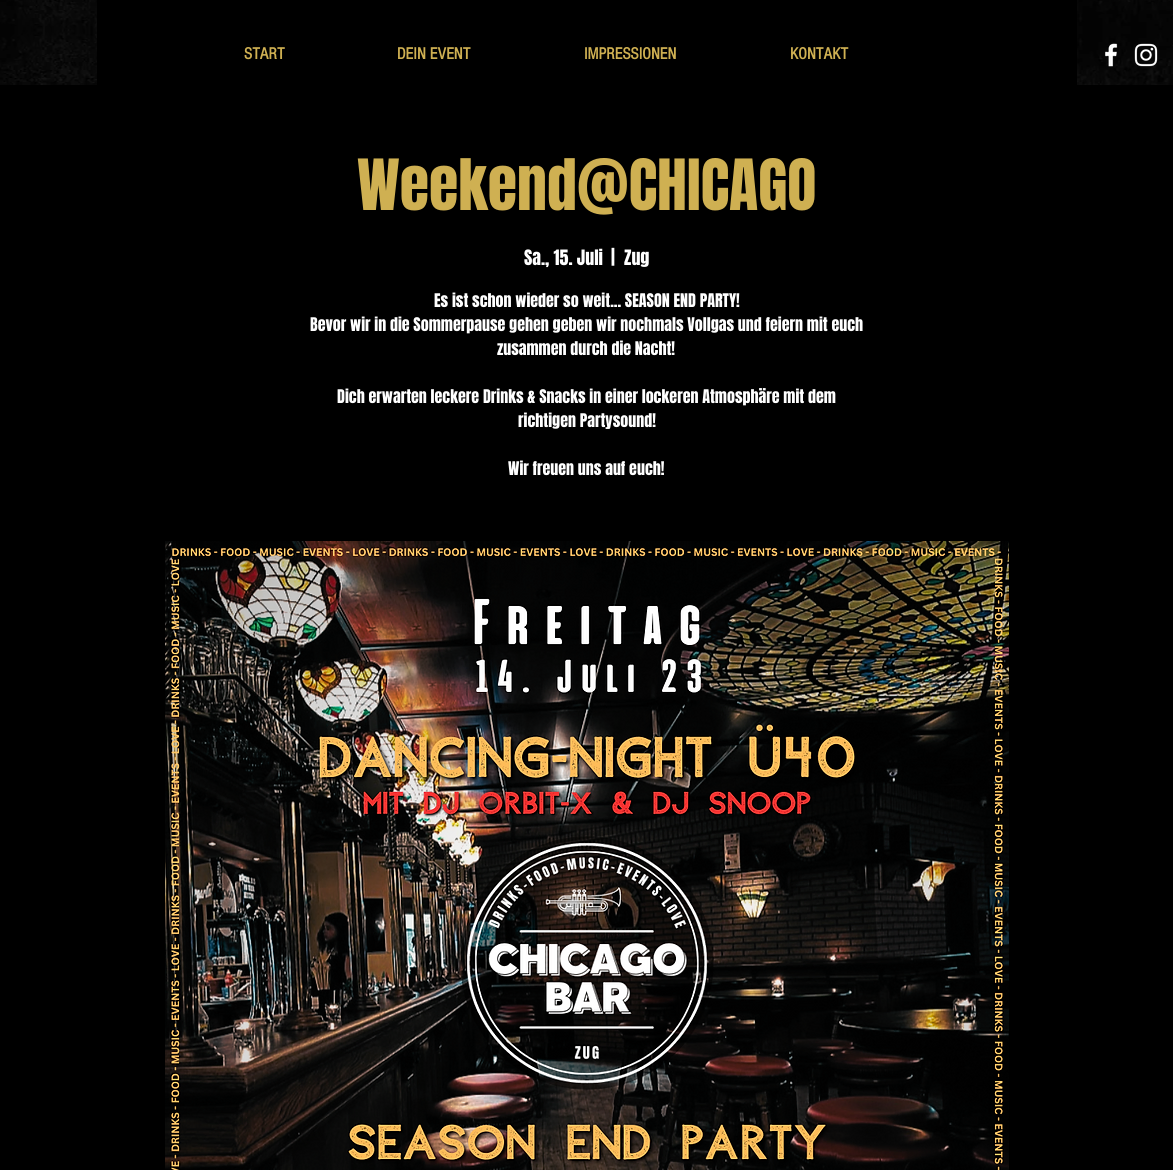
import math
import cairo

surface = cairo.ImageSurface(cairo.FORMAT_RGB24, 1173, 1170)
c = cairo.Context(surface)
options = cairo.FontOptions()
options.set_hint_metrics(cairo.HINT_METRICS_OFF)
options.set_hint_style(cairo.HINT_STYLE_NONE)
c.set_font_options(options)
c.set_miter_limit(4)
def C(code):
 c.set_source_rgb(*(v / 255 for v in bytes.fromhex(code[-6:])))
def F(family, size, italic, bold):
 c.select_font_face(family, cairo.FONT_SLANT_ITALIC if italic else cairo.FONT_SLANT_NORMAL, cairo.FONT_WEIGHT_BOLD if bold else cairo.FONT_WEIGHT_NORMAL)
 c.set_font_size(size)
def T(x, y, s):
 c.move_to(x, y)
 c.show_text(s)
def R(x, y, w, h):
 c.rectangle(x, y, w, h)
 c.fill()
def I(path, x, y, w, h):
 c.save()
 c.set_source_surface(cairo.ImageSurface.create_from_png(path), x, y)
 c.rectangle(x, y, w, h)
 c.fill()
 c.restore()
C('ffffff')
c.paint()
I('1.png',0,0,1173,85)
C('000000')
R(97,0,980,85)
F('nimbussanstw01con',17,0,1)
C('cfb052')
T(244,59,'START')
T(397,59,'DEIN EVENT')
T(584,59,'IMPRESSIONEN')
T(790,59,'KONTAKT')
I('2.png',1105,43,13,24)
I('3.png',1134,43,24,24)
C('000000')
R(0,85,1173,1085)
F('Anton',60,0,0)
C('cfb052')
T(357,210,'Weekend@CHICAGO')
F('Anton',18,0,0)
C('ffffff')
T(524,265,'Sa., 15. Juli')
T(611,265,'|')
T(624,265,'Zug')
F('Anton',16,0,0)
T(434,307,'Es ist schon wieder so weit... SEASON END PARTY!')
T(310,331,'Bevor wir in die Sommerpause gehen geben wir nochmals Vollgas und feiern mit euch')
T(497,355,'zusammen durch die Nacht!')
T(337,403,'Dich erwarten leckere Drinks & Snacks in einer lockeren Atmosphäre mit dem')
T(518,427,'richtigen Partysound!')
T(508,475,'Wir freuen uns auf euch!')
I('4.png',165,541,844,629)
surface.write_to_png('o.png')
